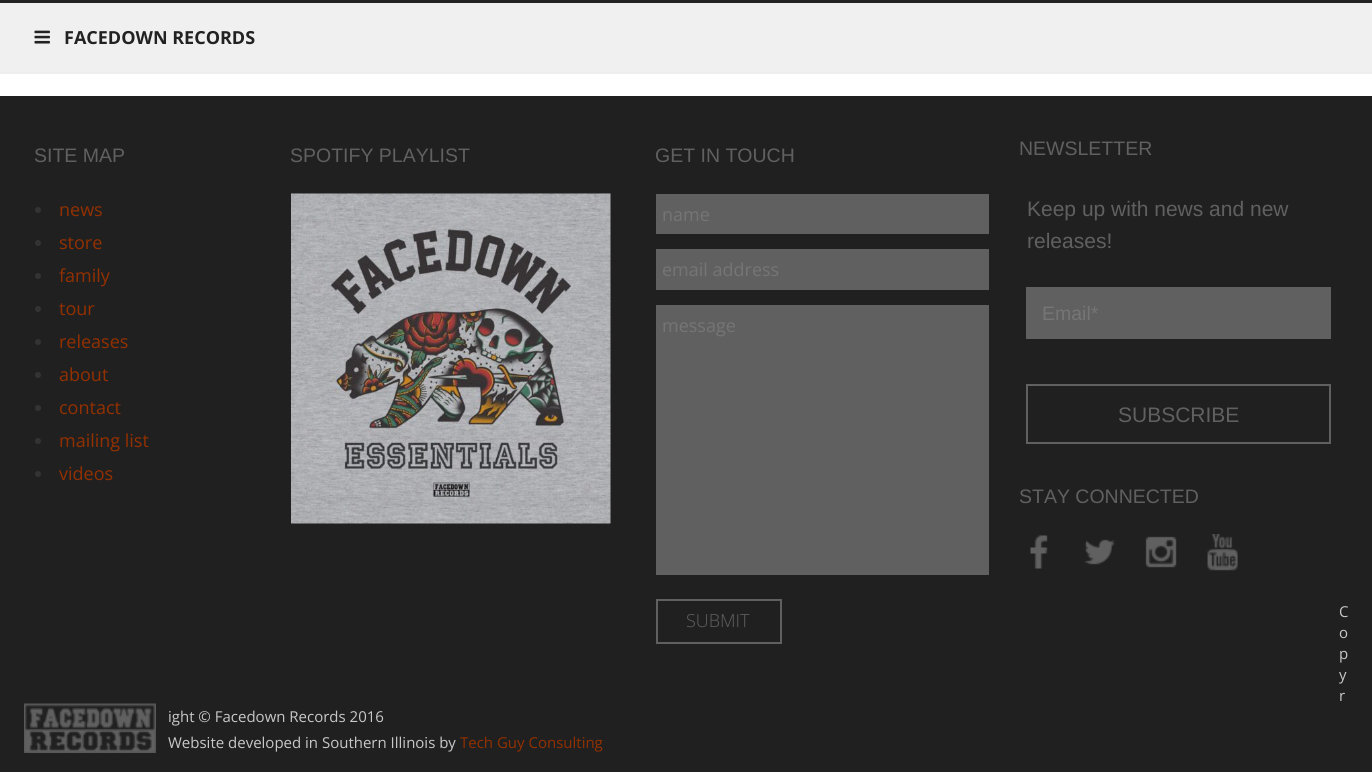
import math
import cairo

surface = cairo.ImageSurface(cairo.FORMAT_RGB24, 1372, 772)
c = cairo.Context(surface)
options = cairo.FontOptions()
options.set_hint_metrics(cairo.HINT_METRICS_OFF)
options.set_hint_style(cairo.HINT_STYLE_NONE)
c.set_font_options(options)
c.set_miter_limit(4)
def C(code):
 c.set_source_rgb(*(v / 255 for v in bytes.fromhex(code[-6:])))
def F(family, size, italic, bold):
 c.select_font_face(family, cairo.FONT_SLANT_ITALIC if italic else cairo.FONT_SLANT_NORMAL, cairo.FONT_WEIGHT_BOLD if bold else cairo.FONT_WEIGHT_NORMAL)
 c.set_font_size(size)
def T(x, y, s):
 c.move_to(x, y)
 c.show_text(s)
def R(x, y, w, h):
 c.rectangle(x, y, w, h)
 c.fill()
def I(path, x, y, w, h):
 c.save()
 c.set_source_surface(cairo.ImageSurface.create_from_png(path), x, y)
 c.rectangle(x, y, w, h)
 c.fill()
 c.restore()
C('ffffff')
c.paint()
C('f0f0f0')
R(0,3,1372,69)
C('222222')
R(0,0,1372,3)
C('eeeeee')
R(0,72,1372,2)
I('1.png',34,30,16,14)
F('Open Sans',18,0,1)
C('222222')
T(64,44,'FACEDOWN RECORDS')
C('202020')
R(0,96,1372,676)
F('Liberation Sans',19.5,0,0)
C('606060')
T(34,162,'SITE MAP')
C('333333')
c.new_path()
c.arc(38,210,3,0,2 * math.pi)
c.fill()
F('Open Sans',18,0,0)
C('933000')
T(59,216,'news')
C('333333')
c.new_path()
c.arc(38,243,3,0,2 * math.pi)
c.fill()
C('933000')
T(59,249,'store')
C('333333')
c.new_path()
c.arc(38,276,3,0,2 * math.pi)
c.fill()
C('933000')
T(59,282,'family')
C('333333')
c.new_path()
c.arc(38,309,3,0,2 * math.pi)
c.fill()
C('933000')
T(59,315,'tour')
C('333333')
c.new_path()
c.arc(38,342,3,0,2 * math.pi)
c.fill()
C('933000')
T(59,348,'releases')
C('333333')
c.new_path()
c.arc(38,375,3,0,2 * math.pi)
c.fill()
C('933000')
T(59,381,'about')
C('333333')
c.new_path()
c.arc(38,408,3,0,2 * math.pi)
c.fill()
C('933000')
T(59,414,'contact')
C('333333')
c.new_path()
c.arc(38,441,3,0,2 * math.pi)
c.fill()
C('933000')
T(59,447,'mailing list')
C('333333')
c.new_path()
c.arc(38,474,3,0,2 * math.pi)
c.fill()
C('933000')
T(59,480,'videos')
F('Liberation Sans',19.5,0,0)
C('606060')
T(290,162,'SPOTIFY PLAYLIST')
I('2.png',291,193,320,331)
T(655,162,'GET IN TOUCH')
R(656,194,333,40)
F('Open Sans',18,0,0)
C('757575')
T(662,221,'name')
C('606060')
R(656,249,333,41)
C('757575')
T(662,276,'email address')
C('606060')
R(656,305,333,270)
C('757575')
T(662,332,'message')
c.rectangle(657,600,124,43)
C('606060')
c.stroke()
F('Open Sans Light',18,0,0)
T(686,627,'SUBMIT')
F('Liberation Sans',19.5,0,0)
T(1019,155,'NEWSLETTER')
F('Liberation Sans',21,0,0)
T(1027,216,'Keep up with news and new')
T(1027,248,'releases!')
R(1026,287,305,52)
F('Liberation Sans',19.5,0,0)
C('757575')
T(1042,320,'Email*')
c.rectangle(1027,385,303,58)
C('606060')
c.stroke()
F('Liberation Sans',21,0,0)
T(1118,422,'SUBSCRIBE')
F('Liberation Sans',19.5,0,0)
T(1019,503,'STAY CONNECTED')
I('3.png',1030,535,18,34)
I('4.png',1084,539,31,26)
I('5.png',1145,536,32,32)
I('6.png',1207,534,31,37)
I('7.png',24,703,132,50)
F('Open Sans',15,0,0)
C('c8c8c8')
T(1339,617,'C')
T(1339,638,'o')
T(1339,659,'p')
T(1339,680,'y')
T(1339,701,'r')
T(168,722,'ight © Facedown Records 2016')
T(168,748,'Website developed in Southern Illinois by')
C('933000')
T(460,748,'Tech Guy Consulting')
surface.write_to_png('o.png')
